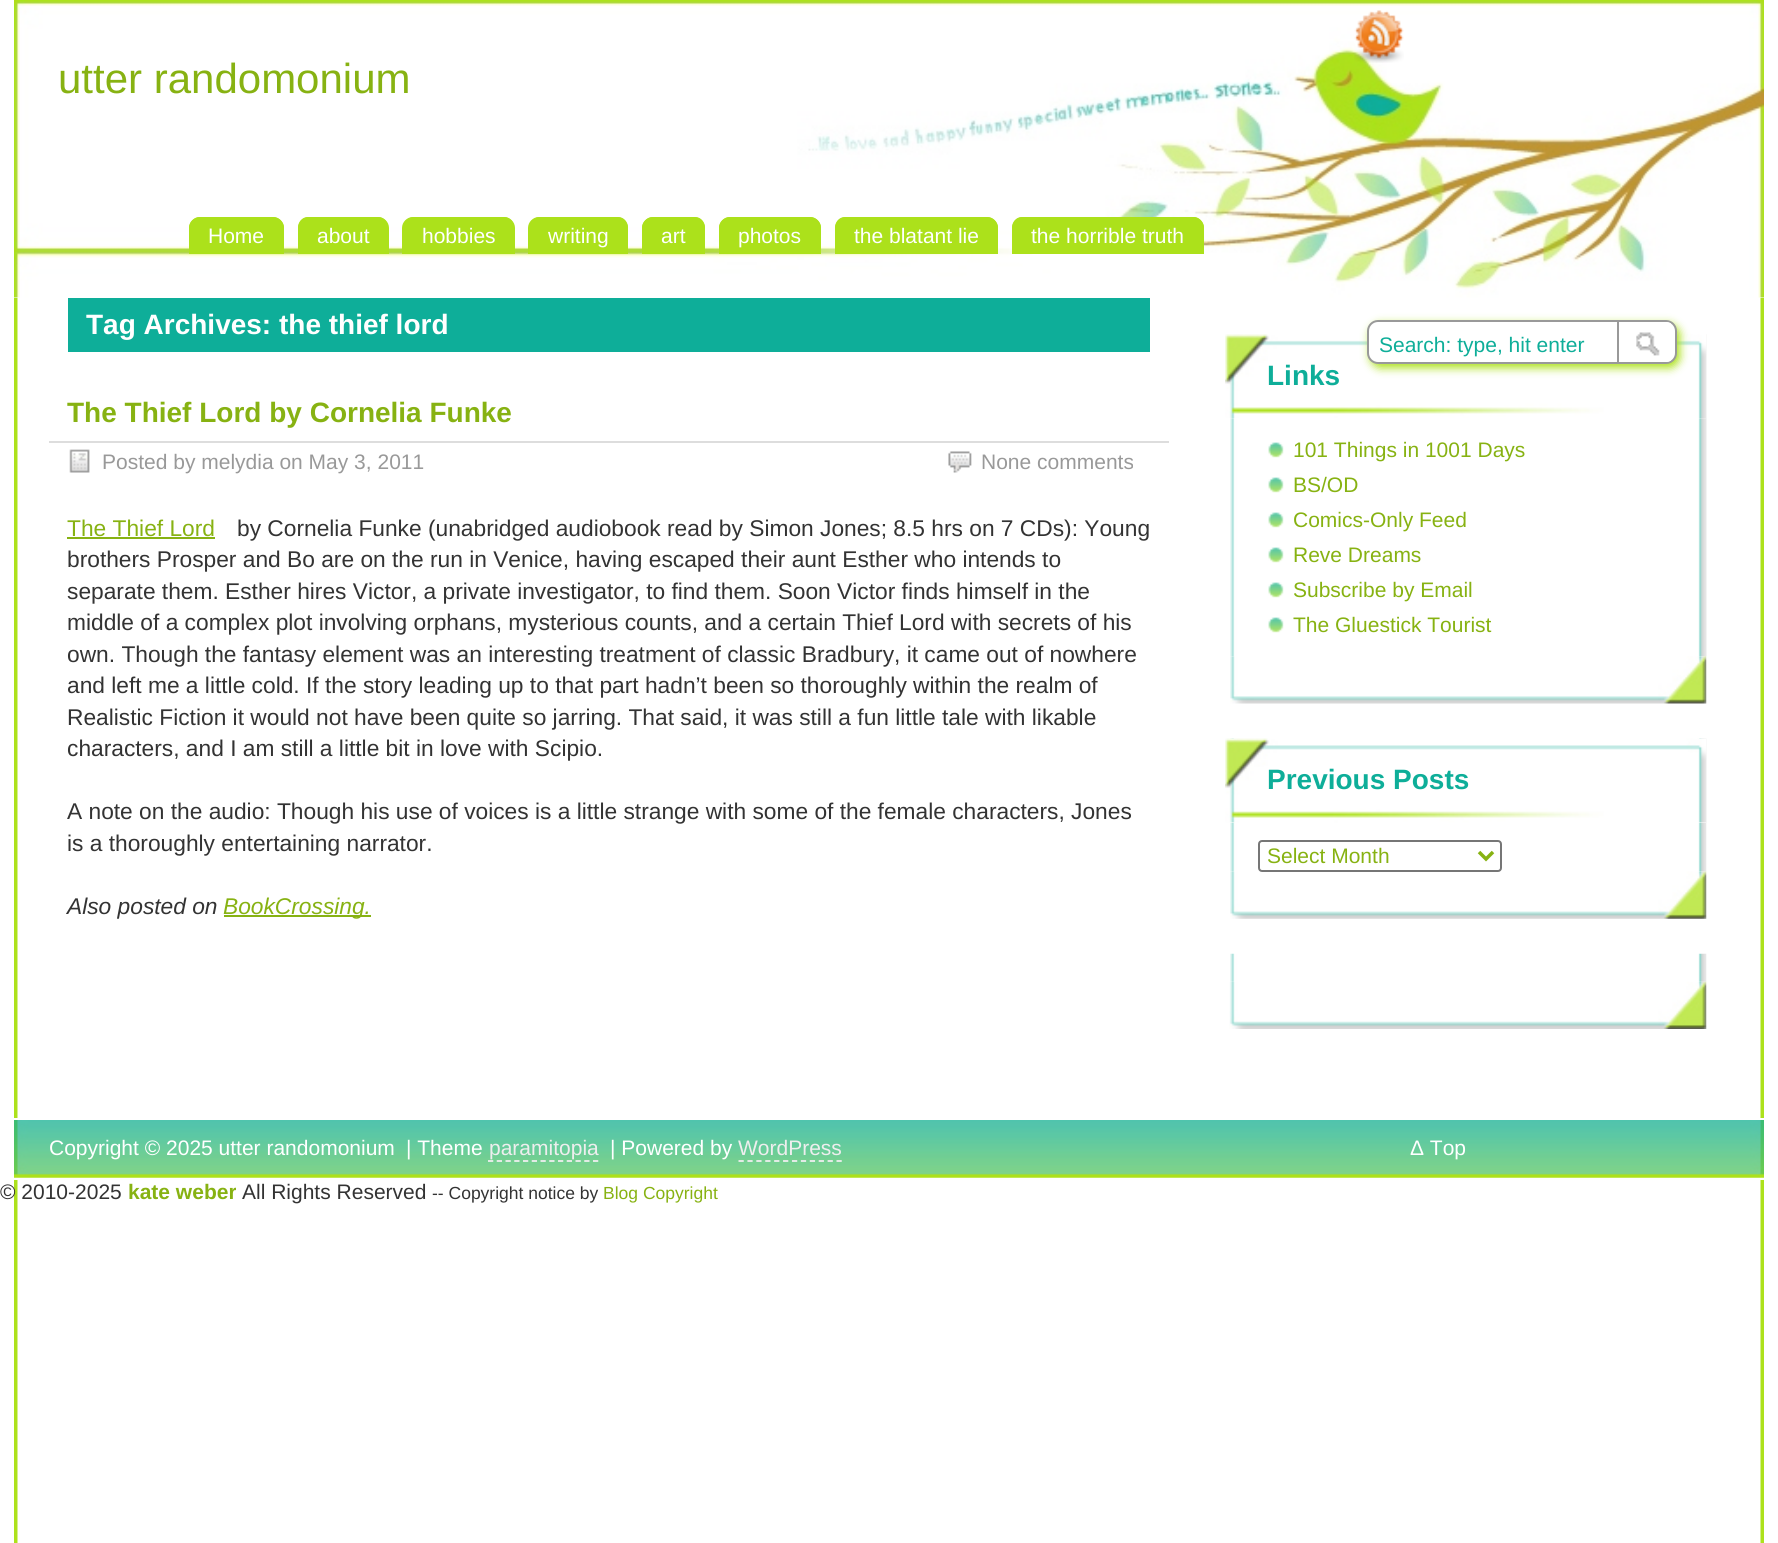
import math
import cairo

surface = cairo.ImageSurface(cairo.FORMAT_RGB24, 1778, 1543)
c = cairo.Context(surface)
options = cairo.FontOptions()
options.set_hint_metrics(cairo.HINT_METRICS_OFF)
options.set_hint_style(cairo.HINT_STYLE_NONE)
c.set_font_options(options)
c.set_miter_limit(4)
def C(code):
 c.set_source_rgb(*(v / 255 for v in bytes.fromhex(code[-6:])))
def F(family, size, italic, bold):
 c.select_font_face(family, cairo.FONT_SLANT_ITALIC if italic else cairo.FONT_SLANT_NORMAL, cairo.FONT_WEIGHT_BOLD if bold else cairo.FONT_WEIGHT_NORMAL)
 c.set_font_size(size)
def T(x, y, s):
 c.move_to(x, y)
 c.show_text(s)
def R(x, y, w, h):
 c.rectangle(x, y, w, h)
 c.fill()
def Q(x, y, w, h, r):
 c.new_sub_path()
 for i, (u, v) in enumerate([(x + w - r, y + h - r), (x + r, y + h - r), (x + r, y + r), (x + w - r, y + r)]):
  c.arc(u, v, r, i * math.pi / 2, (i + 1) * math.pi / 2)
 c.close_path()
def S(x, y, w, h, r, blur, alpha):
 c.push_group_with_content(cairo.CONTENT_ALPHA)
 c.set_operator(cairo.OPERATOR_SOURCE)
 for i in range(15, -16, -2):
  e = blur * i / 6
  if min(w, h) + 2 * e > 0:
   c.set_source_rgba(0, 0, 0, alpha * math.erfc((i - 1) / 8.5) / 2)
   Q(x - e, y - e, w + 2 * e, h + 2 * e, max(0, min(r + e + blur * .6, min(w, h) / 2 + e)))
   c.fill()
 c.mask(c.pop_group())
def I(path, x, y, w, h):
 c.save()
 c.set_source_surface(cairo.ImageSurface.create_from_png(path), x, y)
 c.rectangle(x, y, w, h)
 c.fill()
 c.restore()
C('ffffff')
c.paint()
I('1.png',14,298,1750,1245)
I('2.png',14,0,1750,298)
I('3.png',1354,10,50,53)
F('Liberation Sans',42,0,0)
C('87b212')
T(58,93,'utter randomonium')
C('ace11b')
c.new_path()
c.move_to(200,217)
c.line_to(273,217)
c.curve_to(279,217,284,222,284,228)
c.line_to(284,254)
c.line_to(189,254)
c.line_to(189,228)
c.curve_to(189,222,194,217,200,217)
c.close_path()
c.fill()
c.set_fill_rule(cairo.FILL_RULE_EVEN_ODD)
c.new_path()
c.move_to(200,217)
c.line_to(273,217)
c.curve_to(279,217,284,222,284,228)
c.line_to(284,254)
c.line_to(189,254)
c.line_to(189,228)
c.curve_to(189,222,194,217,200,217)
c.close_path()
c.move_to(200,219)
c.line_to(273,219)
c.curve_to(278,219,282,223,282,228)
c.line_to(282,254)
c.line_to(191,254)
c.line_to(191,228)
c.curve_to(191,223,195,219,200,219)
c.close_path()
c.fill()
F('Liberation Sans',21,0,0)
C('ffffff')
T(208,243,'Home')
C('ace11b')
c.new_path()
c.move_to(309,217)
c.line_to(378,217)
c.curve_to(384,217,389,222,389,228)
c.line_to(389,254)
c.line_to(298,254)
c.line_to(298,228)
c.curve_to(298,222,303,217,309,217)
c.close_path()
c.fill()
c.new_path()
c.move_to(308,217)
c.line_to(378,217)
c.curve_to(384,217,388,222,388,228)
c.line_to(388,254)
c.line_to(298,254)
c.line_to(298,228)
c.curve_to(298,222,302,217,308,217)
c.close_path()
c.move_to(308,219)
c.line_to(378,219)
c.curve_to(383,219,387,223,387,228)
c.line_to(387,254)
c.line_to(299,254)
c.line_to(299,228)
c.curve_to(299,223,303,219,308,219)
c.close_path()
c.fill()
C('ffffff')
T(317,243,'about')
C('ace11b')
c.new_path()
c.move_to(414,217)
c.line_to(504,217)
c.curve_to(510,217,515,222,515,228)
c.line_to(515,254)
c.line_to(403,254)
c.line_to(403,228)
c.curve_to(403,222,408,217,414,217)
c.close_path()
c.fill()
c.new_path()
c.move_to(413,217)
c.line_to(504,217)
c.curve_to(510,217,514,222,514,228)
c.line_to(514,254)
c.line_to(402,254)
c.line_to(402,228)
c.curve_to(402,222,407,217,413,217)
c.close_path()
c.move_to(413,219)
c.line_to(504,219)
c.curve_to(509,219,513,223,513,228)
c.line_to(513,254)
c.line_to(404,254)
c.line_to(404,228)
c.curve_to(404,223,408,219,413,219)
c.close_path()
c.fill()
C('ffffff')
T(422,243,'hobbies')
C('ace11b')
c.new_path()
c.move_to(540,217)
c.line_to(617,217)
c.curve_to(623,217,628,222,628,228)
c.line_to(628,254)
c.line_to(529,254)
c.line_to(529,228)
c.curve_to(529,222,534,217,540,217)
c.close_path()
c.fill()
c.new_path()
c.move_to(539,217)
c.line_to(618,217)
c.curve_to(624,217,628,222,628,228)
c.line_to(628,254)
c.line_to(528,254)
c.line_to(528,228)
c.curve_to(528,222,533,217,539,217)
c.close_path()
c.move_to(539,219)
c.line_to(618,219)
c.curve_to(623,219,626,223,626,228)
c.line_to(626,254)
c.line_to(530,254)
c.line_to(530,228)
c.curve_to(530,223,534,219,539,219)
c.close_path()
c.fill()
C('ffffff')
T(548,243,'writing')
C('ace11b')
c.new_path()
c.move_to(653,217)
c.line_to(694,217)
c.curve_to(700,217,705,222,705,228)
c.line_to(705,254)
c.line_to(642,254)
c.line_to(642,228)
c.curve_to(642,222,647,217,653,217)
c.close_path()
c.fill()
c.new_path()
c.move_to(653,217)
c.line_to(695,217)
c.curve_to(701,217,705,222,705,228)
c.line_to(705,254)
c.line_to(642,254)
c.line_to(642,228)
c.curve_to(642,222,647,217,653,217)
c.close_path()
c.move_to(653,219)
c.line_to(695,219)
c.curve_to(700,219,704,223,704,228)
c.line_to(704,254)
c.line_to(644,254)
c.line_to(644,228)
c.curve_to(644,223,648,219,653,219)
c.close_path()
c.fill()
C('ffffff')
T(661,243,'art')
C('ace11b')
c.new_path()
c.move_to(730,217)
c.line_to(810,217)
c.curve_to(816,217,821,222,821,228)
c.line_to(821,254)
c.line_to(719,254)
c.line_to(719,228)
c.curve_to(719,222,724,217,730,217)
c.close_path()
c.fill()
c.new_path()
c.move_to(730,217)
c.line_to(810,217)
c.curve_to(816,217,821,222,821,228)
c.line_to(821,254)
c.line_to(719,254)
c.line_to(719,228)
c.curve_to(719,222,724,217,730,217)
c.close_path()
c.move_to(730,219)
c.line_to(810,219)
c.curve_to(815,219,819,223,819,228)
c.line_to(819,254)
c.line_to(721,254)
c.line_to(721,228)
c.curve_to(721,223,725,219,730,219)
c.close_path()
c.fill()
C('ffffff')
T(738,243,'photos')
C('ace11b')
c.new_path()
c.move_to(846,217)
c.line_to(987,217)
c.curve_to(993,217,998,222,998,228)
c.line_to(998,254)
c.line_to(835,254)
c.line_to(835,228)
c.curve_to(835,222,840,217,846,217)
c.close_path()
c.fill()
c.new_path()
c.move_to(845,217)
c.line_to(987,217)
c.curve_to(993,217,998,222,998,228)
c.line_to(998,254)
c.line_to(835,254)
c.line_to(835,228)
c.curve_to(835,222,839,217,845,217)
c.close_path()
c.move_to(845,219)
c.line_to(987,219)
c.curve_to(992,219,996,223,996,228)
c.line_to(996,254)
c.line_to(836,254)
c.line_to(836,228)
c.curve_to(836,223,840,219,845,219)
c.close_path()
c.fill()
C('ffffff')
T(854,243,'the blatant lie')
C('ace11b')
c.new_path()
c.move_to(1023,217)
c.line_to(1193,217)
c.curve_to(1199,217,1204,222,1204,228)
c.line_to(1204,254)
c.line_to(1012,254)
c.line_to(1012,228)
c.curve_to(1012,222,1017,217,1023,217)
c.close_path()
c.fill()
c.new_path()
c.move_to(1022,217)
c.line_to(1194,217)
c.curve_to(1199,217,1204,222,1204,228)
c.line_to(1204,254)
c.line_to(1012,254)
c.line_to(1012,228)
c.curve_to(1012,222,1016,217,1022,217)
c.close_path()
c.move_to(1022,219)
c.line_to(1194,219)
c.curve_to(1198,219,1202,223,1202,228)
c.line_to(1202,254)
c.line_to(1013,254)
c.line_to(1013,228)
c.curve_to(1013,223,1017,219,1022,219)
c.close_path()
c.fill()
C('ffffff')
T(1031,243,'the horrible truth')
I('7.png',1706,334,1,323)
I('8.png',1225,334,482,84)
C('ace11b')
S(1370,324,310,44,11,4.5,1)
C('ffffff')
Q(1368,321,308,42,10)
c.fill_preserve()
C('999999')
c.stroke()
C('0eae99')
T(1379,352,'Search: type, hit enter')
c.save()
c.set_fill_rule(cairo.FILL_RULE_WINDING)
Q(1369,322,306,40,9)
c.clip()
C('ffffff')
R(1619,322,52,40)
c.restore()
I('4.png',1636,332,24,24)
C('999999')
R(1617,322,2,40)
C('0eae99')
R(68,298,1082,54)
F('Liberation Sans',28,0,1)
C('ffffff')
T(86,334,'Tag Archives: the thief lord')
C('87b212')
T(67,422,'The Thief Lord by Cornelia Funke')
C('dddddd')
R(49,441,1120,2)
I('5.png',69,449,21,24)
F('Liberation Sans',21,0,0)
C('999999')
T(102,469,'Posted by melydia on May 3, 2011')
I('6.png',948,451,24,22)
T(981,469,'None comments')
F('Liberation Sans',22.75,0,0)
C('87b212')
T(67,536,'The Thief Lord')
R(67,537,148,2)
C('333333')
T(237,536,'by Cornelia Funke (unabridged audiobook read by Simon Jones; 8.5 hrs on 7 CDs): Young')
T(67,567,'brothers Prosper and Bo are on the run in Venice, having escaped their aunt Esther who intends to')
T(67,599,'separate them. Esther hires Victor, a private investigator, to find them. Soon Victor finds himself in the')
T(67,630,'middle of a complex plot involving orphans, mysterious counts, and a certain Thief Lord with secrets of his')
T(67,662,'own. Though the fantasy element was an interesting treatment of classic Bradbury, it came out of nowhere')
T(67,693,'and left me a little cold. If the story leading up to that part hadn’t been so thoroughly within the realm of')
T(67,725,'Realistic Fiction it would not have been quite so jarring. That said, it was still a fun little tale with likable')
T(67,756,'characters, and I am still a little bit in love with Scipio.')
T(67,819,'A note on the audio: Though his use of voices is a little strange with some of the female characters, Jones')
T(67,851,'is a thoroughly entertaining narrator.')
F('Liberation Sans',22.75,1,0)
T(67,914,'Also posted on')
C('87b212')
R(224,915,147,2)
T(223,914,'BookCrossing.')
F('Liberation Sans',28,0,1)
C('0eae99')
T(1267,385,'Links')
I('9.png',1230,418,477,239)
I('10.png',1268,442,16,16)
F('Liberation Sans',21,0,0)
C('87b212')
T(1293,457,'101 Things in 1001 Days')
I('10.png',1268,477,16,16)
T(1293,492,'BS/OD')
I('10.png',1268,512,16,16)
T(1293,527,'Comics-Only Feed')
I('10.png',1268,547,16,16)
T(1293,562,'Reve Dreams')
I('10.png',1268,582,16,16)
T(1293,597,'Subscribe by Email')
I('10.png',1268,617,16,16)
T(1293,632,'The Gluestick Tourist')
C('ffffff')
R(1230,656,476,1)
I('11.png',1230,656,477,48)
I('12.png',1230,738,477,134)
R(1230,739,476,84)
I('13.png',1225,738,482,85)
F('Liberation Sans',28,0,1)
C('0eae99')
T(1267,789,'Previous Posts')
I('14.png',1230,871,477,48)
Q(1259,841,242,30,3)
C('767676')
c.stroke()
c.new_path()
c.move_to(1479,852)
c.line_to(1486,859)
c.line_to(1493,852)
C('87b212')
c.set_line_width(3.5)
c.stroke()
F('Liberation Sans',21,0,0)
T(1267,863,'Select Month')
I('15.png',1230,953,477,29)
I('16.png',1229,981,478,48)
C('ffffff')
R(14,1118,1750,62)
I('17.png',14,1120,1750,58)
T(49,1155,'Copyright © 2025 utter randomonium')
T(406,1155,'| Theme')
C('eeeeee')
T(489,1155,'paramitopia')
c.new_path()
c.move_to(488,1161)
c.line_to(598.5,1161)
c.set_line_width(1.8)
c.set_dash([5.25,3.5])
c.stroke()
C('ffffff')
T(610,1155,'| Powered by')
C('eeeeee')
T(738,1155,'WordPress')
c.new_path()
c.move_to(738.5,1161)
c.line_to(842,1161)
c.set_dash([5.25,3.66])
c.stroke()
C('ffffff')
T(1410,1155,'Δ Top')
C('333333')
T(0,1199,'© 2010-2025')
F('Liberation Sans',21,0,1)
C('87b212')
T(128,1199,'kate weber')
F('Liberation Sans',21,0,0)
C('333333')
T(242,1199,'All Rights Reserved')
F('Liberation Sans',17.5,0,0)
T(432,1199,'-- Copyright notice by')
C('87b212')
T(603,1199,'Blog Copyright')
surface.write_to_png('o.png')
